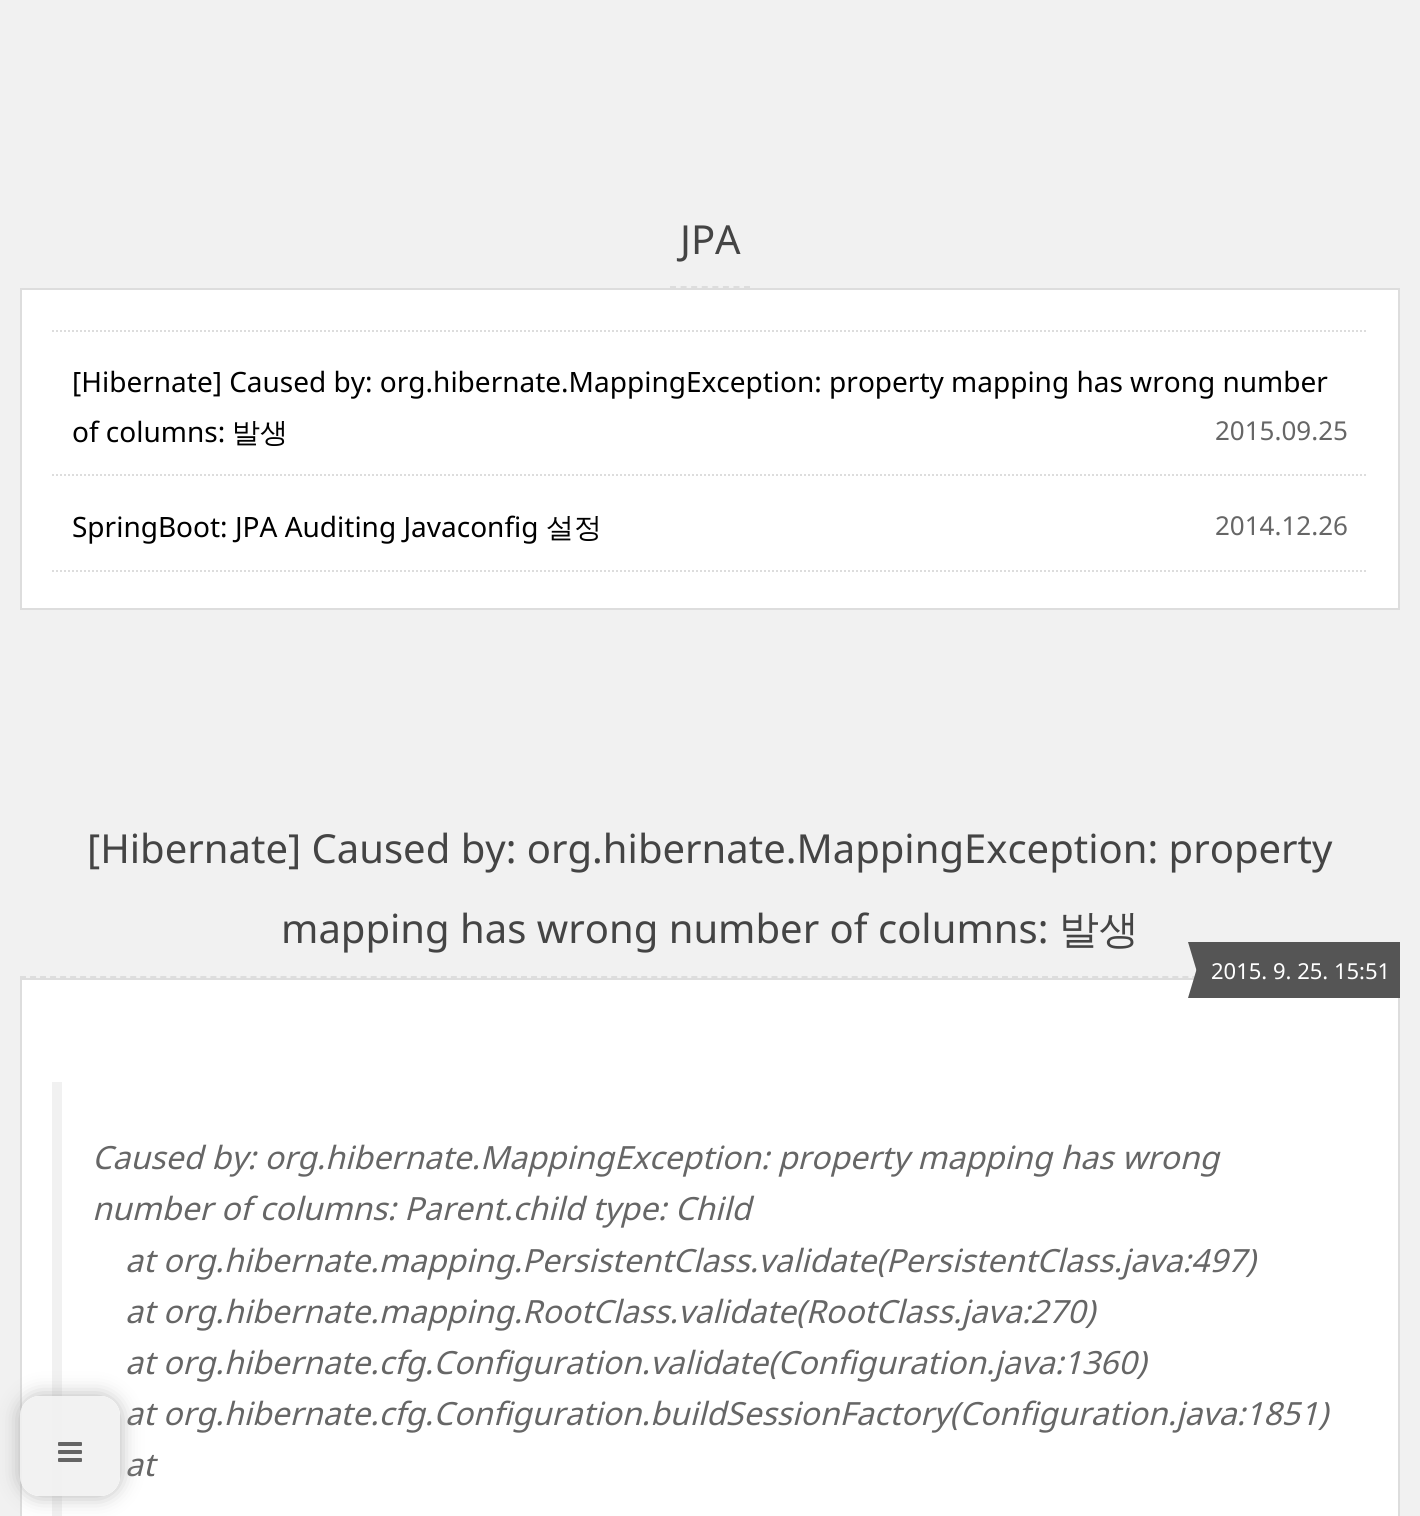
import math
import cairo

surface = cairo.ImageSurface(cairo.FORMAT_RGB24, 1420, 1516)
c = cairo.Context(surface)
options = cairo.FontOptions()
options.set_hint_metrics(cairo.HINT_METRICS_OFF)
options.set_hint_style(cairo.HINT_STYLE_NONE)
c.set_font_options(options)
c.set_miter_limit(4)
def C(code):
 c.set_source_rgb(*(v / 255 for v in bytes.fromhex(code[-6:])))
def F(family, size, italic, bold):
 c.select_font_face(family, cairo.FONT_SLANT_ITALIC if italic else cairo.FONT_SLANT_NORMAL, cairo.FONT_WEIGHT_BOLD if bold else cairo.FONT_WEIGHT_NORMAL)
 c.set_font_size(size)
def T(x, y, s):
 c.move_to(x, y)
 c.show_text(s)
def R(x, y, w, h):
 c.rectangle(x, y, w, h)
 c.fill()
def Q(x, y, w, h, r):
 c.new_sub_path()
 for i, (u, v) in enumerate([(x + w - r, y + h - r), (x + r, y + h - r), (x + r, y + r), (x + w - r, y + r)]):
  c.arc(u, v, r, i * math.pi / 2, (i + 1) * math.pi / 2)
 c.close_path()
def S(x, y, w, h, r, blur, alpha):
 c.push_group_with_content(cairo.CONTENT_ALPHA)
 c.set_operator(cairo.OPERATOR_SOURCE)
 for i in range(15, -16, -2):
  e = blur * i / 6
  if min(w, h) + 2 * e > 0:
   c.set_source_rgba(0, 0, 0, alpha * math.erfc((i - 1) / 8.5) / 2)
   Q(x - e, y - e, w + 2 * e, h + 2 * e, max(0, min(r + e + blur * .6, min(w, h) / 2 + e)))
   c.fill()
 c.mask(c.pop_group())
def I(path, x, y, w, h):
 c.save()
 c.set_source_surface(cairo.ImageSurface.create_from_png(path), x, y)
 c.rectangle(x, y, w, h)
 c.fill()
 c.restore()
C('f1f1f1')
c.paint()
c.new_path()
c.move_to(670,287)
c.line_to(750,287)
C('dddddd')
c.set_dash([6,4.58])
c.stroke()
F('Noto Sans',40,0,0)
C('444444')
T(680,254,'JPA')
C('ffffff')
c.rectangle(21,289,1378,320)
c.fill_preserve()
C('dddddd')
c.set_dash([])
c.stroke()
c.new_path()
c.move_to(52,331)
c.line_to(1368,331)
c.set_dash([2,2])
c.stroke()
c.new_path()
c.move_to(52,475)
c.line_to(1368,475)
c.stroke()
F('Noto Sans',28,0,0)
C('000000')
T(72,392,'[Hibernate] Caused by: org.hibernate.MappingException: property mapping has wrong number')
T(72,442,'of columns:')
F('WenQuanYi Zen Hei Medium',28,0,0)
T(232,442,'발생')
F('Noto Sans',26,0,0)
C('666666')
T(1215,440,'2015.09.25')
c.new_path()
c.move_to(52,571)
c.line_to(1368,571)
C('dddddd')
c.stroke()
F('Noto Sans',28,0,0)
C('000000')
T(72,537,'SpringBoot: JPA Auditing Javaconfig')
F('WenQuanYi Zen Hei Medium',28,0,0)
T(546,537,'설정')
F('Noto Sans',26,0,0)
C('666666')
T(1215,535,'2014.12.26')
c.new_path()
c.move_to(20,977)
c.line_to(1400,977)
C('dddddd')
c.set_dash([6,4.02])
c.stroke()
F('Noto Sans',40,0,0)
C('444444')
T(87,863,'[Hibernate] Caused by: org.hibernate.MappingException: property')
T(281,943,'mapping has wrong number of columns:')
F('WenQuanYi Zen Hei Medium',40,0,0)
T(1059,943,'발생')
C('ffffff')
c.rectangle(21,979,1378,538)
c.fill_preserve()
C('dddddd')
c.set_dash([])
c.stroke()
C('555555')
R(1200,942,200,56)
c.new_path()
c.move_to(1188,942)
c.line_to(1200,942)
c.line_to(1200,982)
c.close_path()
c.fill()
c.new_path()
c.move_to(1200,998)
c.line_to(1188,998)
c.line_to(1200,958)
c.close_path()
c.fill()
F('Noto Sans',22,0,0)
C('ffffff')
T(1211,979,'2015. 9. 25. 15:51')
C('f1f1f1')
R(52,1082,10,434)
F('Noto Sans',32,1,0)
C('666666')
T(92,1169,'Caused by: org.hibernate.MappingException: property mapping has wrong')
T(92,1220,'number of columns: Parent.child type: Child')
T(125,1272,'at org.hibernate.mapping.PersistentClass.validate(PersistentClass.java:497)')
T(125,1323,'at org.hibernate.mapping.RootClass.validate(RootClass.java:270)')
T(125,1374,'at org.hibernate.cfg.Configuration.validate(Configuration.java:1360)')
T(125,1425,'at org.hibernate.cfg.Configuration.buildSessionFactory(Configuration.java:1851)')
T(125,1476,'at')
c.save()
c.set_fill_rule(cairo.FILL_RULE_EVEN_ODD)
c.new_path()
c.move_to(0,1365)
c.line_to(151,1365)
c.line_to(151,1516)
c.line_to(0,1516)
c.close_path()
c.move_to(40,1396)
c.line_to(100,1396)
c.curve_to(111,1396,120,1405,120,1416)
c.line_to(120,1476)
c.curve_to(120,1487,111,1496,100,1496)
c.line_to(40,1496)
c.curve_to(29,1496,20,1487,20,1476)
c.line_to(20,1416)
c.curve_to(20,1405,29,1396,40,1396)
c.close_path()
c.clip()
C('aaaaaa')
S(20,1396,100,100,20,10,.9)
c.restore()
c.set_source_rgba(0.945,0.945,0.945,0.9)
Q(20,1396,100,100,20)
c.fill()
I('1.png',58,1442,24,20)
surface.write_to_png('o.png')
